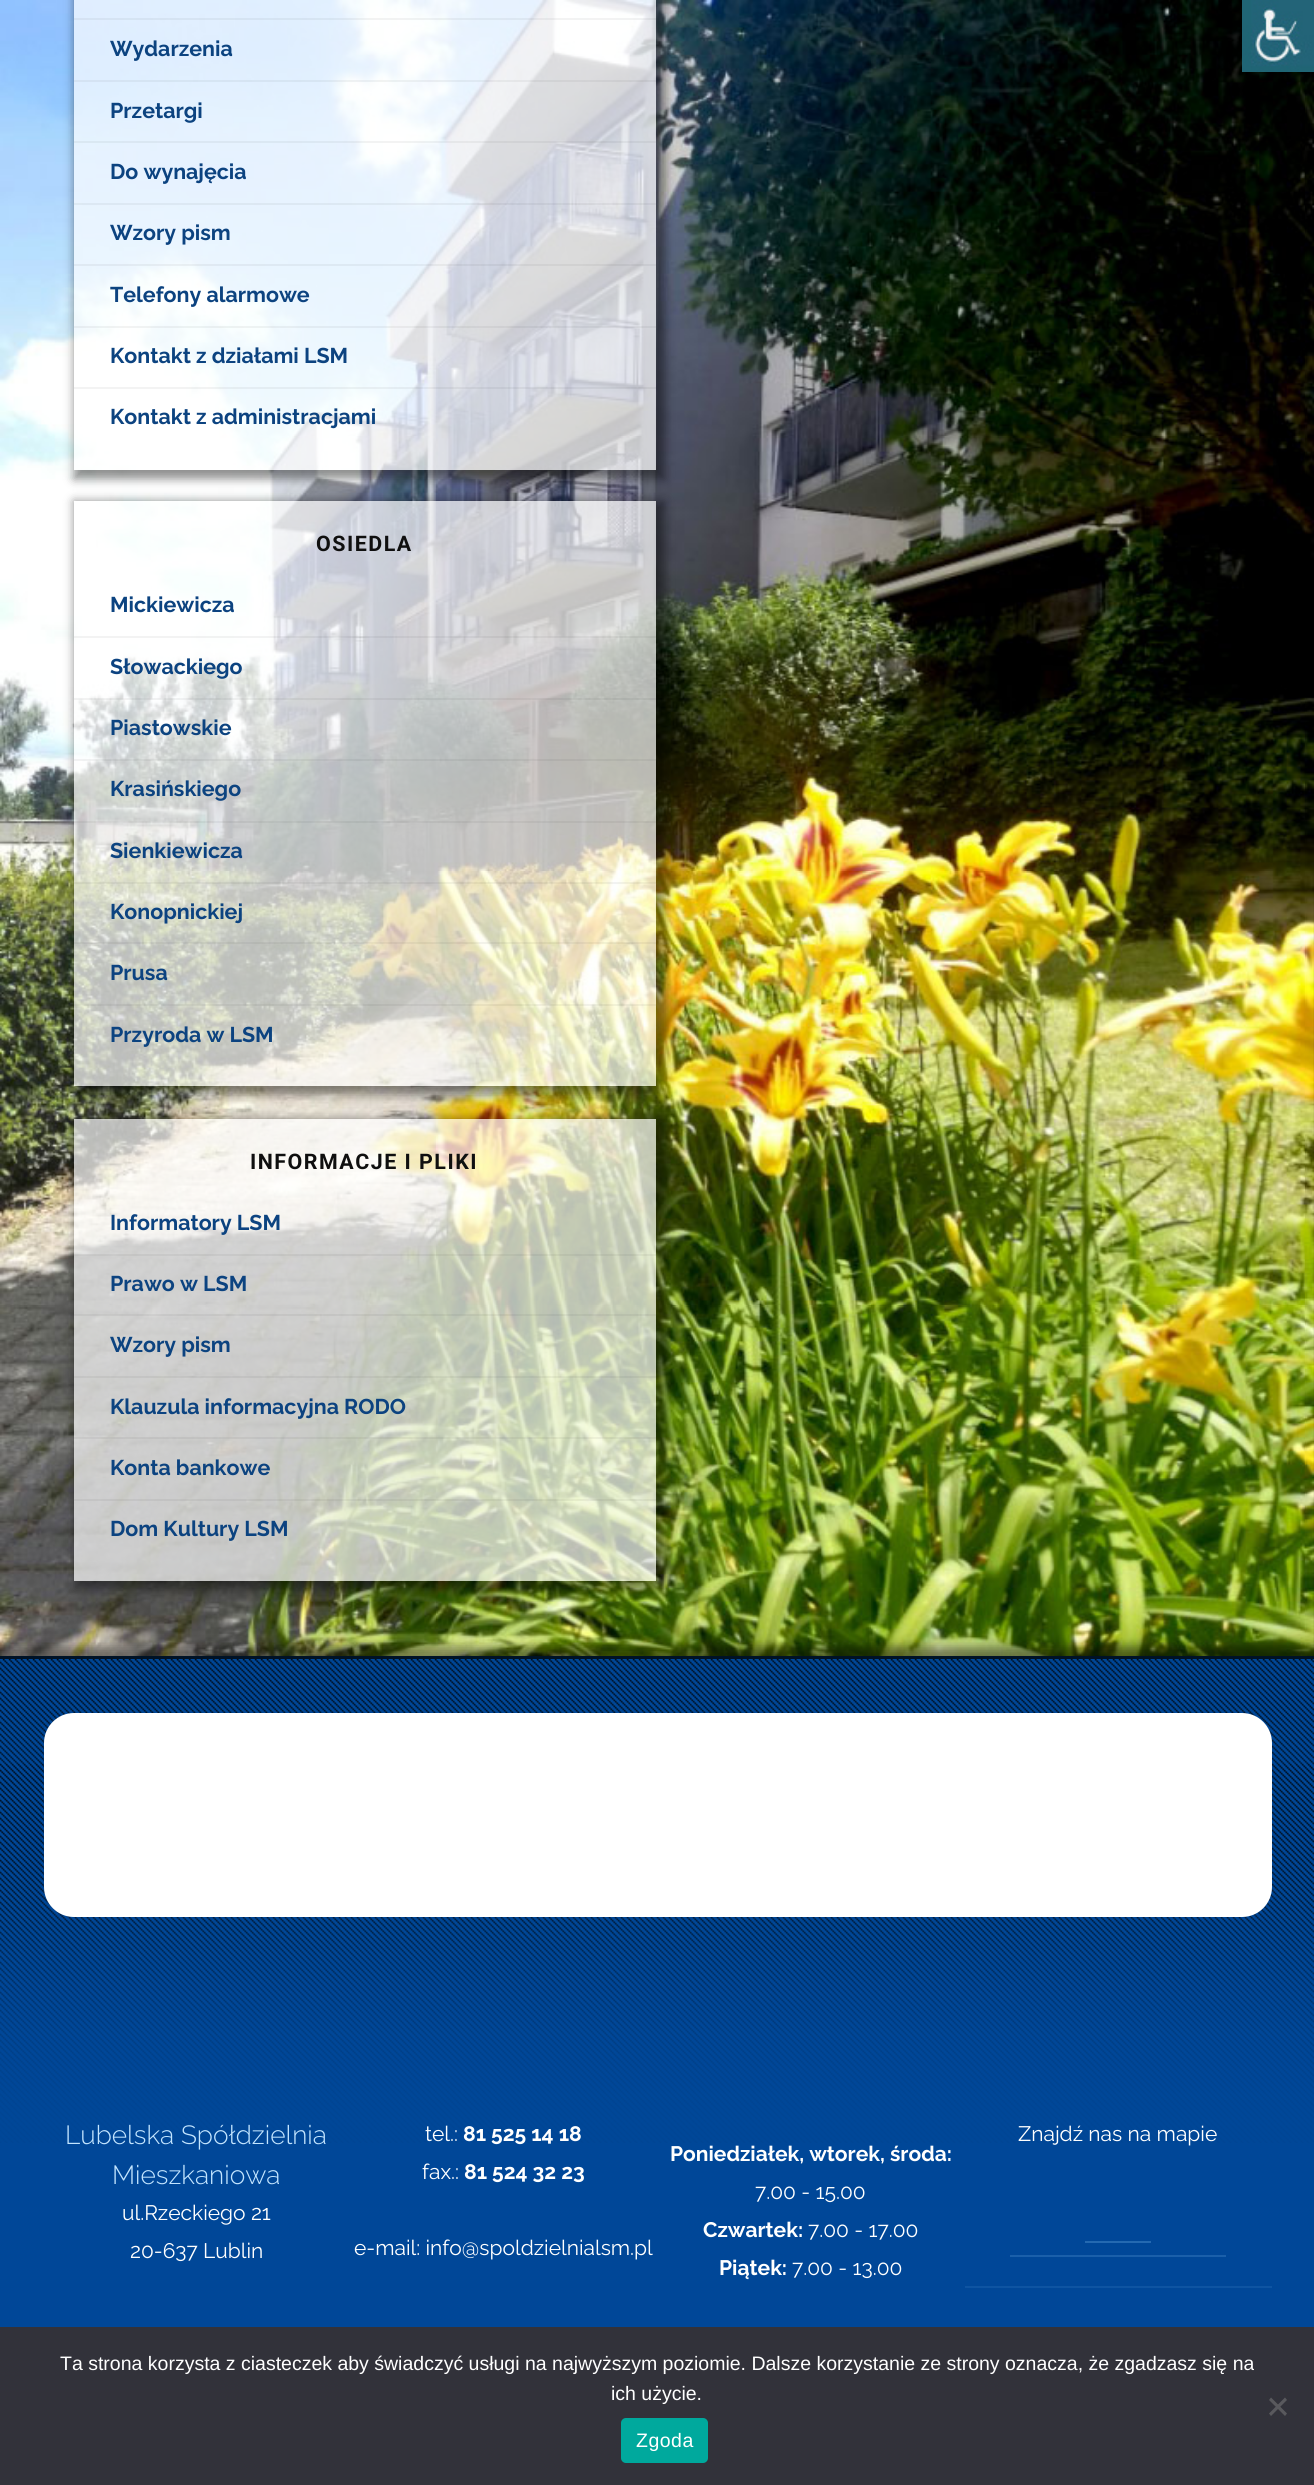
import math
import cairo

surface = cairo.ImageSurface(cairo.FORMAT_RGB24, 1314, 2485)
c = cairo.Context(surface)
options = cairo.FontOptions()
options.set_hint_metrics(cairo.HINT_METRICS_OFF)
options.set_hint_style(cairo.HINT_STYLE_NONE)
c.set_font_options(options)
c.set_miter_limit(4)
def C(code):
 c.set_source_rgb(*(v / 255 for v in bytes.fromhex(code[-6:])))
def F(family, size, italic, bold):
 c.select_font_face(family, cairo.FONT_SLANT_ITALIC if italic else cairo.FONT_SLANT_NORMAL, cairo.FONT_WEIGHT_BOLD if bold else cairo.FONT_WEIGHT_NORMAL)
 c.set_font_size(size)
def T(x, y, s):
 c.move_to(x, y)
 c.show_text(s)
def L(x, y, s, letter, word):
 c.move_to(x, y)
 for ch in s:
  c.show_text(ch)
  c.rel_move_to(letter + word * (ch == ' '), 0)
def R(x, y, w, h):
 c.rectangle(x, y, w, h)
 c.fill()
def Q(x, y, w, h, r):
 c.new_sub_path()
 for i, (u, v) in enumerate([(x + w - r, y + h - r), (x + r, y + h - r), (x + r, y + r), (x + w - r, y + r)]):
  c.arc(u, v, r, i * math.pi / 2, (i + 1) * math.pi / 2)
 c.close_path()
def S(x, y, w, h, r, blur, alpha):
 c.push_group_with_content(cairo.CONTENT_ALPHA)
 c.set_operator(cairo.OPERATOR_SOURCE)
 for i in range(15, -16, -2):
  e = blur * i / 6
  if min(w, h) + 2 * e > 0:
   c.set_source_rgba(0, 0, 0, alpha * math.erfc((i - 1) / 8.5) / 2)
   Q(x - e, y - e, w + 2 * e, h + 2 * e, max(0, min(r + e + blur * .6, min(w, h) / 2 + e)))
   c.fill()
 c.mask(c.pop_group())
def I(path, x, y, w, h):
 c.save()
 c.set_source_surface(cairo.ImageSurface.create_from_png(path), x, y)
 c.rectangle(x, y, w, h)
 c.fill()
 c.restore()
C('ffffff')
c.paint()
I('1.png',0,0,1314,1656)
C('000000')
S(-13,1646,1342,774,0,5,.47)
c.set_source_rgba(0,0,0,0.05)
R(1313,745,1,911)
c.save()
c.set_fill_rule(cairo.FILL_RULE_EVEN_ODD)
c.new_path()
c.move_to(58,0)
c.line_to(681,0)
c.line_to(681,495)
c.line_to(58,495)
c.close_path()
c.move_to(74,-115)
c.line_to(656,-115)
c.line_to(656,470)
c.line_to(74,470)
c.close_path()
c.clip()
C('000000')
S(74,-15,591,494,0,5,.44)
c.restore()
c.set_source_rgba(1,1,1,0.7)
R(74,0,582,470)
c.set_source_rgba(0,0,0,0.05)
R(74,18,582,2)
R(74,80,582,2)
F('Raleway',21.4,0,1)
C('0c4380')
T(110,56,'Wydarzenia')
c.set_source_rgba(0,0,0,0.05)
R(74,141,582,2)
C('0c4380')
T(110,118,'Przetargi')
c.set_source_rgba(0,0,0,0.05)
R(74,203,582,2)
C('0c4380')
T(110,179,'Do wynajęcia')
c.set_source_rgba(0,0,0,0.05)
R(74,264,582,2)
C('0c4380')
T(110,240,'Wzory pism')
c.set_source_rgba(0,0,0,0.05)
R(74,326,582,2)
C('0c4380')
T(110,302,'Telefony alarmowe')
c.set_source_rgba(0,0,0,0.05)
R(74,387,582,2)
C('0c4380')
T(110,363,'Kontakt z działami LSM')
T(110,424,'Kontakt z administracjami')
c.save()
c.set_fill_rule(cairo.FILL_RULE_EVEN_ODD)
c.new_path()
c.move_to(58,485)
c.line_to(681,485)
c.line_to(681,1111)
c.line_to(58,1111)
c.close_path()
c.move_to(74,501)
c.line_to(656,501)
c.line_to(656,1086)
c.line_to(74,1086)
c.close_path()
c.clip()
C('000000')
S(74,501,591,594,0,5,.44)
c.restore()
c.set_source_rgba(1,1,1,0.7)
R(74,501,582,585)
F('Roboto',21.4,0,1)
C('0f0f0f')
L(316,551,'OSIEDLA',1.5,0)
c.set_source_rgba(0,0,0,0.05)
R(74,636,582,2)
F('Raleway',21.4,0,1)
C('0c4380')
T(110,612,'Mickiewicza')
c.set_source_rgba(0,0,0,0.05)
R(74,698,582,2)
C('0c4380')
T(110,674,'Słowackiego')
c.set_source_rgba(0,0,0,0.05)
R(74,759,582,2)
C('0c4380')
T(110,735,'Piastowskie')
c.set_source_rgba(0,0,0,0.05)
R(74,821,582,2)
C('0c4380')
T(110,796,'Krasińskiego')
c.set_source_rgba(0,0,0,0.05)
R(74,882,582,2)
C('0c4380')
T(110,858,'Sienkiewicza')
c.set_source_rgba(0,0,0,0.05)
R(74,942,582,2)
C('0c4380')
T(110,919,'Konopnickiej')
c.set_source_rgba(0,0,0,0.05)
R(74,1004,582,2)
C('0c4380')
T(110,980,'Prusa')
T(110,1042,'Przyroda w LSM')
c.save()
c.set_fill_rule(cairo.FILL_RULE_EVEN_ODD)
c.new_path()
c.move_to(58,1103)
c.line_to(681,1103)
c.line_to(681,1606)
c.line_to(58,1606)
c.close_path()
c.move_to(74,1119)
c.line_to(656,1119)
c.line_to(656,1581)
c.line_to(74,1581)
c.close_path()
c.clip()
C('000000')
S(74,1119,591,471,0,5,.44)
c.restore()
c.set_source_rgba(1,1,1,0.7)
R(74,1119,582,462)
F('Roboto',21.4,0,1)
C('0f0f0f')
L(250,1169,'INFORMACJE I PLIKI',1.5,0)
c.set_source_rgba(0,0,0,0.05)
R(74,1254,582,2)
F('Raleway',21.4,0,1)
C('0c4380')
T(110,1230,'Informatory LSM')
c.set_source_rgba(0,0,0,0.05)
R(74,1314,582,2)
C('0c4380')
T(110,1291,'Prawo w LSM')
c.set_source_rgba(0,0,0,0.05)
R(74,1376,582,2)
C('0c4380')
T(110,1352,'Wzory pism')
c.set_source_rgba(0,0,0,0.05)
R(74,1437,582,2)
C('0c4380')
T(110,1414,'Klauzula informacyjna RODO')
c.set_source_rgba(0,0,0,0.05)
R(74,1499,582,2)
C('0c4380')
T(110,1475,'Konta bankowe')
T(110,1536,'Dom Kultury LSM')
C('004798')
R(0,1659,1314,668)
I('2.png',0,1659,1314,484)
C('001226')
R(0,1656,1314,3)
C('ffffff')
Q(44,1713,1228,204,30)
c.fill()
F('Raleway Light',26.25,0,0)
C('c3e5ff')
T(65,2144,'Lubelska Spółdzielnia')
T(112,2184,'Mieszkaniowa')
F('Raleway',21,0,0)
C('ffffff')
T(122,2220,'ul.Rzeckiego 21')
T(130,2258,'20-637 Lublin')
T(425,2141,'tel.:')
F('Raleway',21,0,1)
T(463,2141,'81 525 14 18')
F('Raleway',21,0,0)
T(422,2179,'fax.:')
F('Raleway',21,0,1)
T(464,2179,'81 524 32 23')
F('Raleway',21,0,0)
T(354,2255,'e-mail: info@spoldzielnialsm.pl')
C('0e54a2')
R(965,2286,307,2)
C('ffffff')
T(1018,2141,'Znajdź nas na mapie')
C('2469b1')
R(1085,2241,66,2)
C('1a5faa')
R(1010,2255,216,2)
F('Raleway',21,0,1)
C('ffffff')
T(670,2161,'Poniedziałek, wtorek, środa:')
F('Raleway',21,0,0)
T(755,2199,'7.00 - 15.00')
F('Raleway',21,0,1)
T(703,2237,'Czwartek:')
F('Raleway',21,0,0)
T(808,2237,'7.00 - 17.00')
F('Raleway',21,0,1)
T(719,2275,'Piątek:')
F('Raleway',21,0,0)
T(792,2275,'7.00 - 13.00')
I('3.png',1242,0,72,72)
C('32323a')
R(0,2327,1314,158)
F('Liberation Sans',19.5,0,0)
C('ffffff')
T(60,2370,'Ta strona korzysta z ciasteczek aby świadczyć usługi na najwyższym poziomie. Dalsze korzystanie ze strony oznacza, że zgadzasz się na')
T(611,2400,'ich użycie.')
C('59595d')
c.new_path()
c.move_to(1285,2397.5)
c.line_to(1287,2400)
c.line_to(1271,2416)
c.line_to(1269,2413.5)
c.close_path()
c.fill()
c.new_path()
c.move_to(1269,2400)
c.line_to(1271,2397.5)
c.line_to(1287,2413.5)
c.line_to(1285,2416)
c.close_path()
c.fill()
C('00a99d')
Q(621,2418,87,45,5)
c.fill()
C('ffffff')
L(636,2447,'Zgoda',.5,0)
surface.write_to_png('o.png')
